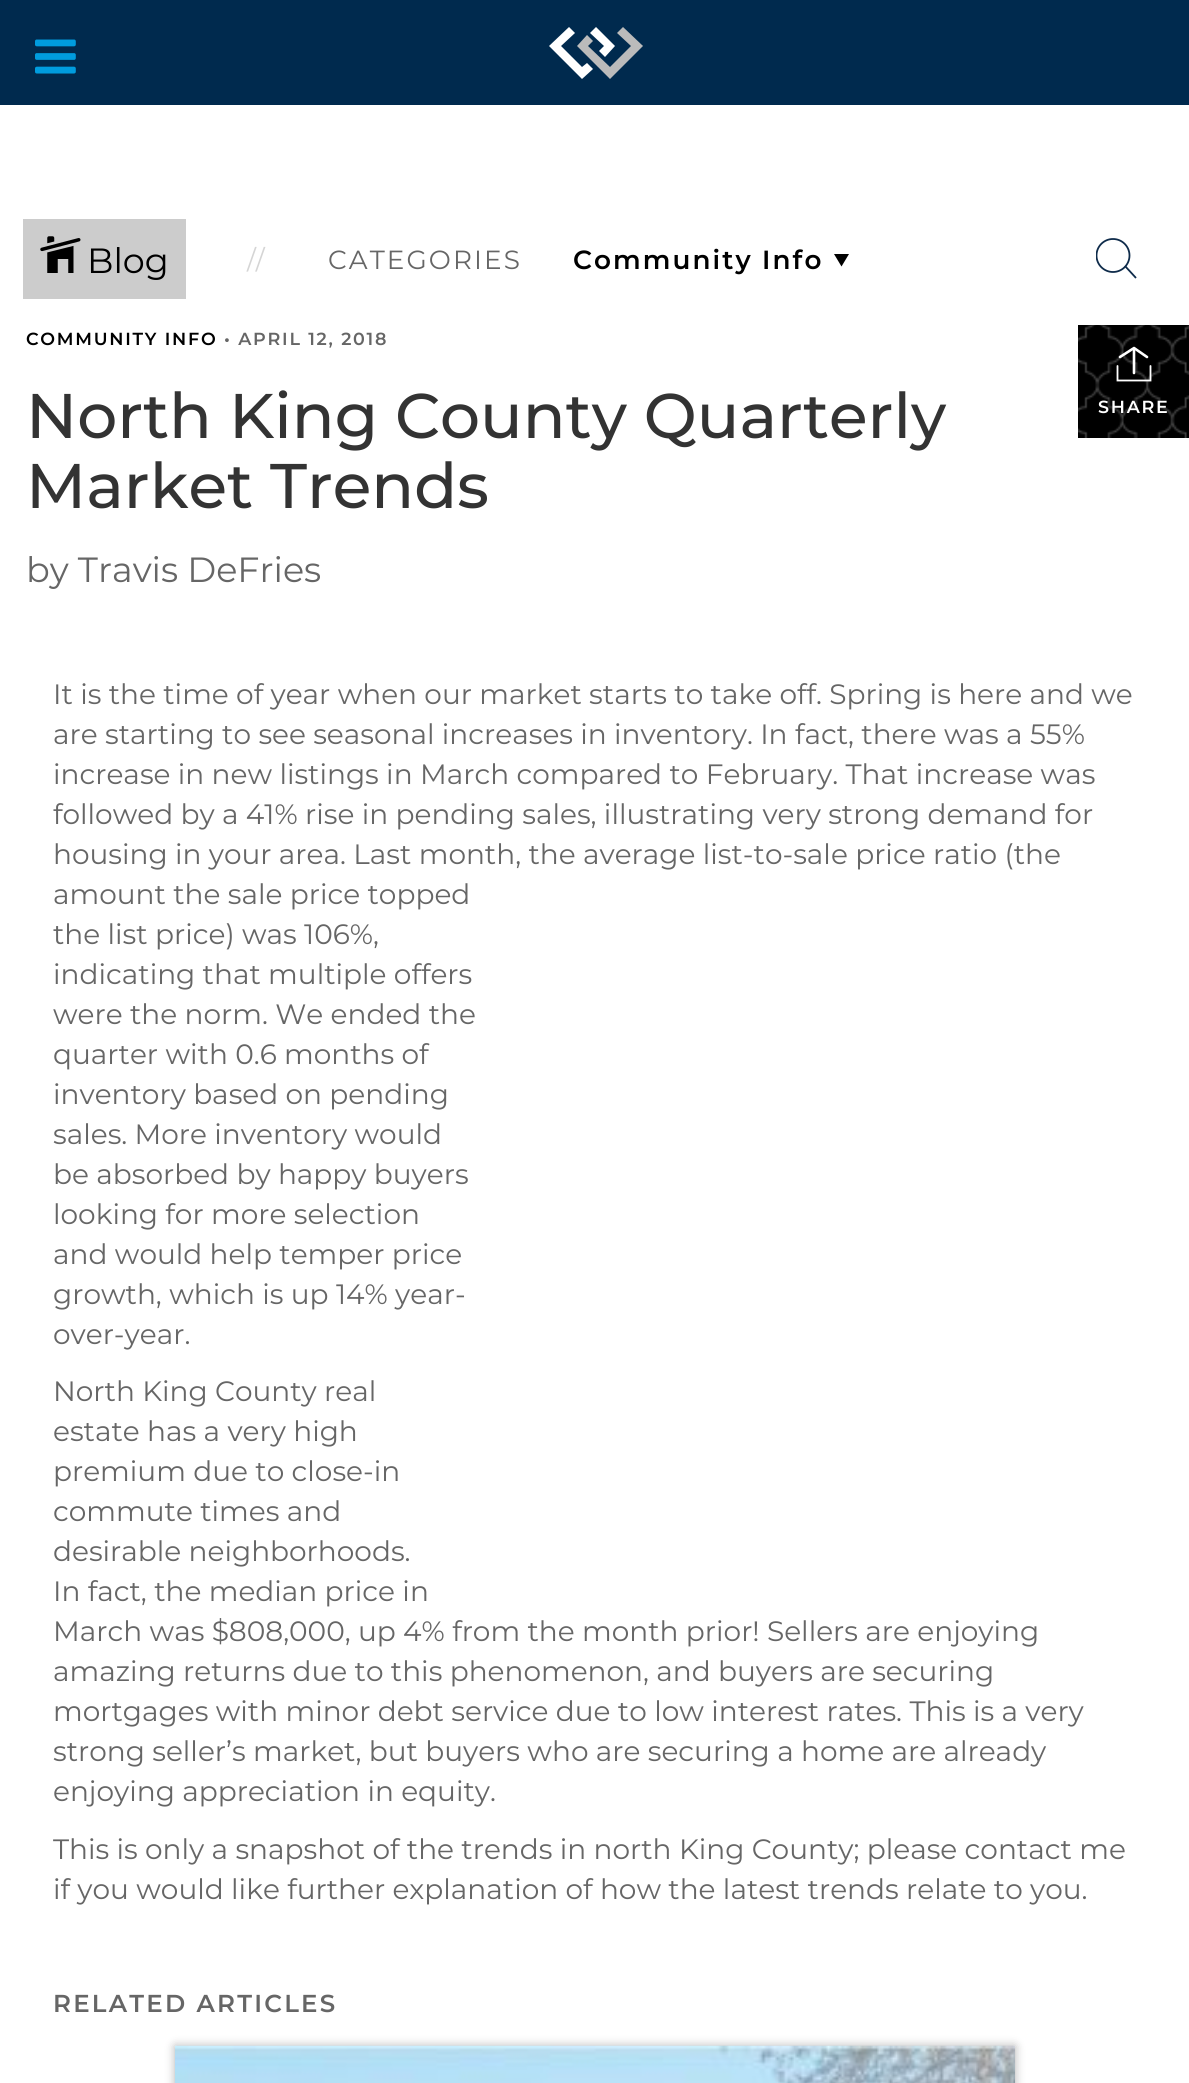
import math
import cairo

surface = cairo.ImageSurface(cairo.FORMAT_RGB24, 1189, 2083)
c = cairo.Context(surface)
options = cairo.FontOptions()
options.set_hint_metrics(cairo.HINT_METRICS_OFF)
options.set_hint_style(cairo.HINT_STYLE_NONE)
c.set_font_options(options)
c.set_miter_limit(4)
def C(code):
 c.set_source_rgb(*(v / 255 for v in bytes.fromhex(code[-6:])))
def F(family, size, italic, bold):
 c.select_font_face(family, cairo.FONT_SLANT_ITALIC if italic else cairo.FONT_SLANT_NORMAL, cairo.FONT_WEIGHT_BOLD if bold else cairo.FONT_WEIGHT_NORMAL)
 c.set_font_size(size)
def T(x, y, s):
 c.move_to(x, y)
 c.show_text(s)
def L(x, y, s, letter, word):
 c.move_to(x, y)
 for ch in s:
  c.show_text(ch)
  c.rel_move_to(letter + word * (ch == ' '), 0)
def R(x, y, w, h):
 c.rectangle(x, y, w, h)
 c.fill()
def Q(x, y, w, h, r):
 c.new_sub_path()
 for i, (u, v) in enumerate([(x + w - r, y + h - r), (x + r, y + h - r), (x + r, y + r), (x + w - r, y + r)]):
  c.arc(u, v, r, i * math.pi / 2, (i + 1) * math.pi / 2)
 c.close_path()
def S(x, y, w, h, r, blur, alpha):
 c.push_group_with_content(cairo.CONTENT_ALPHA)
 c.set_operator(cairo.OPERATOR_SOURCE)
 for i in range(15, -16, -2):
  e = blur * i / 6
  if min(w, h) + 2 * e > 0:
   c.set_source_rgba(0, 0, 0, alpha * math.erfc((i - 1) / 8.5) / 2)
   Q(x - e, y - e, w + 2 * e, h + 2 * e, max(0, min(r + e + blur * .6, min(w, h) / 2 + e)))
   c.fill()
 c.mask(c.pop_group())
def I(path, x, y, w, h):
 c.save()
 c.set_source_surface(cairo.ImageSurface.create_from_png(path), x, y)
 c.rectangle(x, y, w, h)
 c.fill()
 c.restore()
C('ffffff')
c.paint()
C('002a4e')
R(0,0,1189,105)
I('1.png',35,39,41,35)
C('bbbbbb')
c.new_path()
c.move_to(643,46)
c.line_to(610,79)
c.line_to(577,46)
c.line_to(587,35)
c.line_to(593,41)
c.line_to(588,46)
c.line_to(610,67)
c.line_to(631,46)
c.line_to(617,33)
c.line_to(623,27)
c.close_path()
c.fill()
C('ffffff')
c.new_path()
c.move_to(596,27)
c.line_to(590,33)
c.line_to(604,46)
c.line_to(599,51)
c.line_to(605,57)
c.line_to(615,46)
c.close_path()
c.move_to(587,63)
c.line_to(593,69)
c.line_to(582,79)
c.line_to(549,46)
c.line_to(569,27)
c.line_to(575,33)
c.line_to(561,46)
c.line_to(582,67)
c.close_path()
c.fill()
C('cccccc')
R(23,219,163,80)
I('2.png',40,236,41,37)
F('Montserrat',35,0,0)
C('000000')
T(87,273,'Blog')
F('Montserrat',26.25,0,0)
C('d5d5d5')
T(247,269,'//')
C('666666')
L(328,269,'CATEGORIES',2.1,0)
C('000000')
c.new_path()
c.move_to(841.5,266.5)
c.line_to(849,254)
c.line_to(834,254)
c.close_path()
c.fill()
F('Montserrat SemiBold',26.25,0,0)
L(573,269,'Community Info',2.1,0)
c.save()
c.rectangle(1096,238,42,42)
c.clip()
c.arc(1113,255.5,16.5,0,2 * math.pi)
C('0e2b4a')
c.set_line_width(1.8)
c.stroke()
c.restore()
c.new_path()
c.move_to(1125,266)
c.line_to(1136,278)
C('0e2b4a')
c.set_line_width(1.8)
c.stroke()
F('Montserrat SemiBold',17.5,0,0)
C('000000')
L(26,345,'COMMUNITY INFO',1.75,0)
C('666666')
L(224,345,'• APRIL 12, 2018',1.75,0)
F('Montserrat Medium',63,0,0)
C('333333')
T(26,438,'North King County Quarterly')
T(26,508,'Market Trends')
F('Montserrat',35,0,0)
C('666666')
T(26,582,'by Travis DeFries')
F('Montserrat',28,0,0)
T(53,704,'It is the time of year when our market starts to take off. Spring is here and we')
T(53,744,'are starting to see seasonal increases in inventory. In fact, there was a 55%')
T(53,784,'increase in new listings in March compared to February. That increase was')
T(53,824,'followed by a 41% rise in pending sales, illustrating very strong demand for')
T(53,864,'housing in your area. Last month, the average list-to-sale price ratio (the')
T(53,904,'amount the sale price topped')
T(53,944,'the list price) was 106%,')
T(53,984,'indicating that multiple offers')
T(53,1024,'were the norm. We ended the')
T(53,1064,'quarter with 0.6 months of')
T(53,1104,'inventory based on pending')
T(53,1144,'sales. More inventory would')
T(53,1184,'be absorbed by happy buyers')
T(53,1224,'looking for more selection')
T(53,1264,'and would help temper price')
T(53,1304,'growth, which is up 14% year-')
T(53,1344,'over-year.')
T(53,1401,'North King County real')
T(53,1441,'estate has a very high')
T(53,1481,'premium due to close-in')
T(53,1521,'commute times and')
T(53,1561,'desirable neighborhoods.')
T(53,1601,'In fact, the median price in')
T(53,1641,'March was $808,000, up 4% from the month prior! Sellers are enjoying')
T(53,1681,'amazing returns due to this phenomenon, and buyers are securing')
T(53,1721,'mortgages with minor debt service due to low interest rates. This is a very')
T(53,1761,'strong seller’s market, but buyers who are securing a home are already')
T(53,1801,'enjoying appreciation in equity.')
T(53,1859,'This is only a snapshot of the trends in north King County; please contact me')
T(53,1899,'if you would like further explanation of how the latest trends relate to you.')
F('Montserrat SemiBold',24.5,0,0)
L(53,2012,'RELATED ARTICLES',2.25,0)
C('000000')
S(175,2046,840,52,0,5,.3)
I('3.png',175,2045,840,38)
I('4.png',1078,325,111,113)
c.new_path()
c.move_to(1117.5,366)
c.line_to(1117.5,380.5)
c.line_to(1150.5,380.5)
c.line_to(1150.5,366)
C('ffffff')
c.set_line_cap(cairo.LINE_CAP_ROUND)
c.stroke()
c.new_path()
c.move_to(1134,373)
c.line_to(1134,349)
c.set_line_width(2.6)
c.stroke()
c.new_path()
c.move_to(1120,357)
c.line_to(1134,348)
c.line_to(1147,357)
c.set_line_join(cairo.LINE_JOIN_ROUND)
c.stroke()
F('Montserrat SemiBold',17.5,0,0)
L(1098,413,'SHARE',1.75,0)
surface.write_to_png('o.png')
